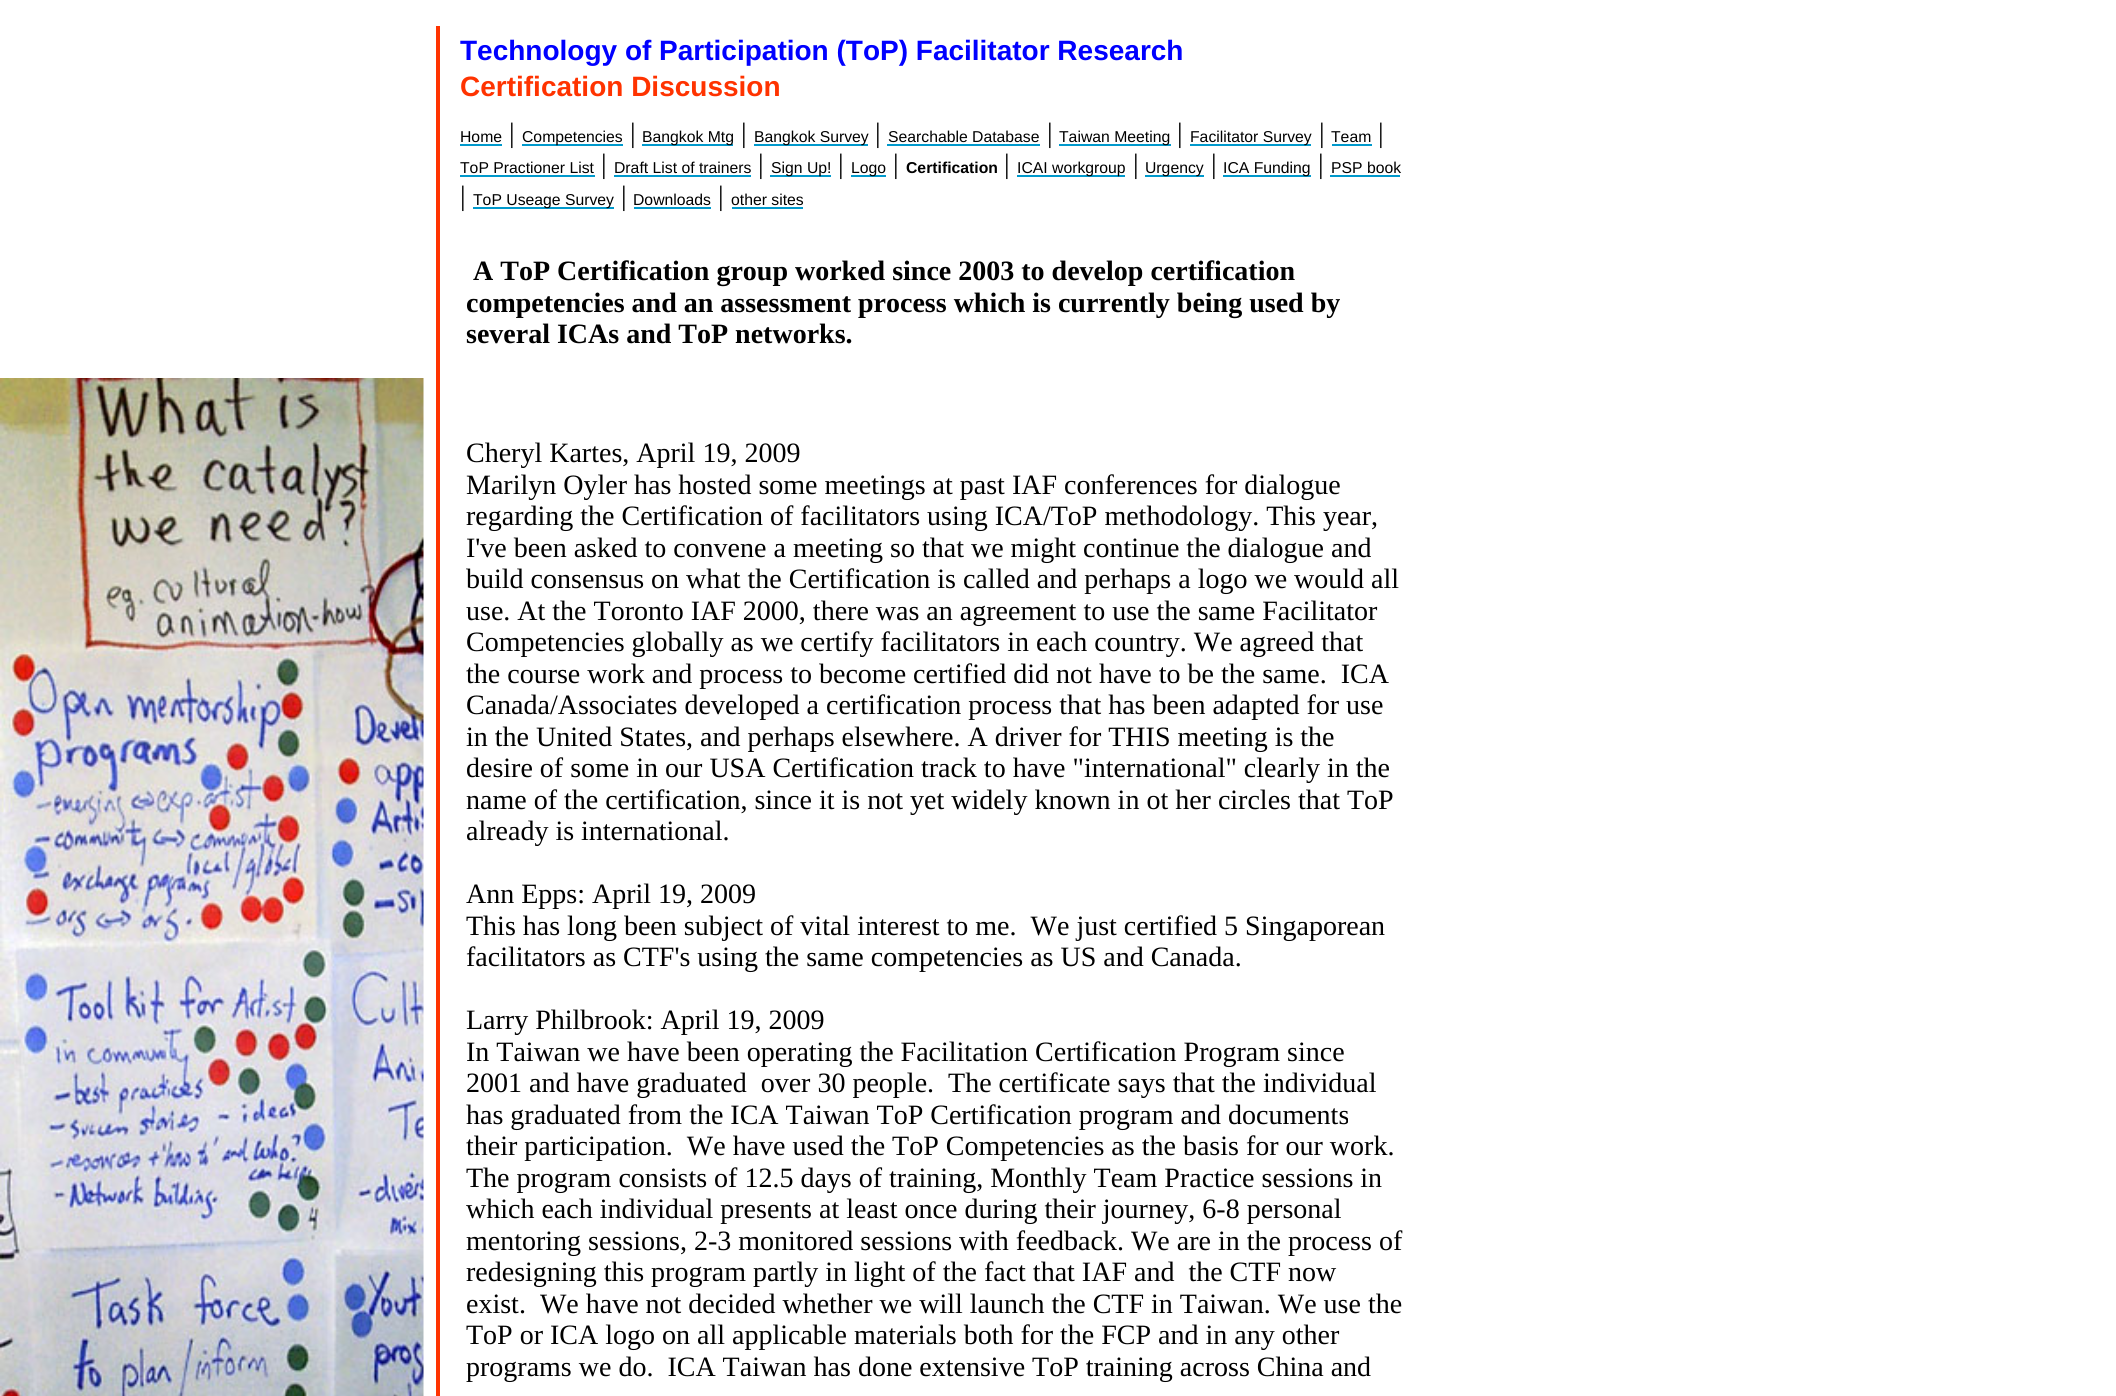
import math
import cairo

surface = cairo.ImageSurface(cairo.FORMAT_RGB24, 2116, 1396)
c = cairo.Context(surface)
options = cairo.FontOptions()
options.set_hint_metrics(cairo.HINT_METRICS_OFF)
options.set_hint_style(cairo.HINT_STYLE_NONE)
c.set_font_options(options)
c.set_miter_limit(4)
def C(code):
 c.set_source_rgb(*(v / 255 for v in bytes.fromhex(code[-6:])))
def F(family, size, italic, bold):
 c.select_font_face(family, cairo.FONT_SLANT_ITALIC if italic else cairo.FONT_SLANT_NORMAL, cairo.FONT_WEIGHT_BOLD if bold else cairo.FONT_WEIGHT_NORMAL)
 c.set_font_size(size)
def T(x, y, s):
 c.move_to(x, y)
 c.show_text(s)
def R(x, y, w, h):
 c.rectangle(x, y, w, h)
 c.fill()
def I(path, x, y, w, h):
 c.save()
 c.set_source_surface(cairo.ImageSurface.create_from_png(path), x, y)
 c.rectangle(x, y, w, h)
 c.fill()
 c.restore()
C('ffffff')
c.paint()
I('1.png',0,378,424,1018)
C('ff3300')
R(436,26,4,1370)
F('Liberation Sans',28,0,1)
C('0000ff')
T(460,60,'Technology of Participation (ToP) Facilitator Research')
C('ff3300')
T(460,96,'Certification Discussion')
F('Liberation Sans',15.75,0,0)
C('000000')
T(460,142,'Home')
C('0099cc')
R(460,144,42,2)
F('Liberation Serif',28,0,0)
C('000000')
T(509,142,'|')
C('0099cc')
R(522,144,101,2)
F('Liberation Sans',15.75,0,0)
C('000000')
T(522,142,'Competencies')
F('Liberation Serif',28,0,0)
T(630,142,'|')
C('0099cc')
R(642,144,91,2)
F('Liberation Sans',15.75,0,0)
C('000000')
T(642,142,'Bangkok Mtg')
F('Liberation Serif',28,0,0)
T(741,142,'|')
C('0099cc')
R(754,144,114,2)
F('Liberation Sans',15.75,0,0)
C('000000')
T(754,142,'Bangkok Survey')
F('Liberation Serif',28,0,0)
T(875,142,'|')
F('Liberation Sans',15.75,0,0)
T(888,142,'Searchable Database')
C('0099cc')
R(887,144,153,2)
F('Liberation Serif',28,0,0)
C('000000')
T(1047,142,'|')
C('0099cc')
R(1059,144,112,2)
F('Liberation Sans',15.75,0,0)
C('000000')
T(1059,142,'Taiwan Meeting')
F('Liberation Serif',28,0,0)
T(1177,142,'|')
C('0099cc')
R(1190,144,121,2)
F('Liberation Sans',15.75,0,0)
C('000000')
T(1190,142,'Facilitator Survey')
F('Liberation Serif',28,0,0)
T(1319,142,'|')
F('Liberation Sans',15.75,0,0)
T(1331,142,'Team')
C('0099cc')
R(1332,144,40,2)
F('Liberation Serif',28,0,0)
C('000000')
T(1378,142,'|')
F('Liberation Sans',15.75,0,0)
T(460,173,'ToP Practioner List')
C('0099cc')
R(460,175,135,2)
F('Liberation Serif',28,0,0)
C('000000')
T(601,173,'|')
F('Liberation Sans',15.75,0,0)
T(614,173,'Draft List of trainers')
C('0099cc')
R(614,175,137,2)
F('Liberation Serif',28,0,0)
C('000000')
T(758,173,'|')
C('0099cc')
R(770,175,61,2)
F('Liberation Sans',15.75,0,0)
C('000000')
T(771,173,'Sign Up!')
F('Liberation Serif',28,0,0)
T(838,173,'|')
C('0099cc')
R(851,175,35,2)
F('Liberation Sans',15.75,0,0)
C('000000')
T(851,173,'Logo')
F('Liberation Serif',28,0,0)
T(893,173,'|')
F('Liberation Sans',15.75,0,1)
T(906,173,'Certification')
F('Liberation Serif',28,0,0)
T(1004,173,'|')
C('0099cc')
R(1017,175,108,2)
F('Liberation Sans',15.75,0,0)
C('000000')
T(1017,173,'ICAI workgroup')
F('Liberation Serif',28,0,0)
T(1133,173,'|')
C('0099cc')
R(1145,175,59,2)
F('Liberation Sans',15.75,0,0)
C('000000')
T(1145,173,'Urgency')
F('Liberation Serif',28,0,0)
T(1211,173,'|')
C('0099cc')
R(1223,175,88,2)
F('Liberation Sans',15.75,0,0)
C('000000')
T(1223,173,'ICA Funding')
F('Liberation Serif',28,0,0)
T(1318,173,'|')
F('Liberation Sans',15.75,0,0)
T(1331,173,'PSP book')
C('0099cc')
R(1330,175,70,2)
F('Liberation Serif',28,0,0)
C('000000')
T(460,205,'|')
C('0099cc')
R(473,207,141,2)
F('Liberation Sans',15.75,0,0)
C('000000')
T(473,205,'ToP Useage Survey')
F('Liberation Serif',28,0,0)
T(621,205,'|')
F('Liberation Sans',15.75,0,0)
T(633,205,'Downloads')
C('0099cc')
R(634,207,77,2)
F('Liberation Serif',28,0,0)
C('000000')
T(718,205,'|')
F('Liberation Sans',15.75,0,0)
T(731,205,'other sites')
C('0099cc')
R(732,207,71,2)
F('Liberation Serif',28,0,1)
C('000000')
T(473,280,'A ToP Certification group worked since 2003 to develop certification')
T(466,312,'competencies and an assessment process which is currently being used by')
T(466,343,'several ICAs and ToP networks.')
F('Liberation Serif',28,0,0)
T(466,462,'Cheryl Kartes, April 19, 2009')
T(466,494,'Marilyn Oyler has hosted some meetings at past IAF conferences for dialogue')
T(466,525,'regarding the Certification of facilitators using ICA/ToP methodology. This year,')
T(466,557,'I\'ve been asked to convene a meeting so that we might continue the dialogue and')
T(466,588,'build consensus on what the Certification is called and perhaps a logo we would all')
T(466,620,'use. At the Toronto IAF 2000, there was an agreement to use the same Facilitator')
T(466,651,'Competencies globally as we certify facilitators in each country. We agreed that')
T(466,683,'the course work and process to become certified did not have to be the same.  ICA')
T(466,714,'Canada/Associates developed a certification process that has been adapted for use')
T(466,746,'in the United States, and perhaps elsewhere. A driver for THIS meeting is the')
T(466,777,'desire of some in our USA Certification track to have "international" clearly in the')
T(466,809,'name of the certification, since it is not yet widely known in ot her circles that ToP')
T(466,840,'already is international.')
T(466,903,'Ann Epps: April 19, 2009')
T(466,935,'This has long been subject of vital interest to me.  We just certified 5 Singaporean')
T(466,966,'facilitators as CTF\'s using the same competencies as US and Canada.')
T(466,1029,'Larry Philbrook: April 19, 2009')
T(466,1061,'In Taiwan we have been operating the Facilitation Certification Program since')
T(466,1092,'2001 and have graduated  over 30 people.  The certificate says that the individual')
T(466,1124,'has graduated from the ICA Taiwan ToP Certification program and documents')
T(466,1155,'their participation.  We have used the ToP Competencies as the basis for our work.')
T(466,1187,'The program consists of 12.5 days of training, Monthly Team Practice sessions in')
T(466,1218,'which each individual presents at least once during their journey, 6-8 personal')
T(466,1250,'mentoring sessions, 2-3 monitored sessions with feedback. We are in the process of')
T(466,1281,'redesigning this program partly in light of the fact that IAF and  the CTF now')
T(466,1313,'exist.  We have not decided whether we will launch the CTF in Taiwan. We use the')
T(466,1344,'ToP or ICA logo on all applicable materials both for the FCP and in any other')
T(466,1376,'programs we do.  ICA Taiwan has done extensive ToP training across China and')
surface.write_to_png('o.png')
